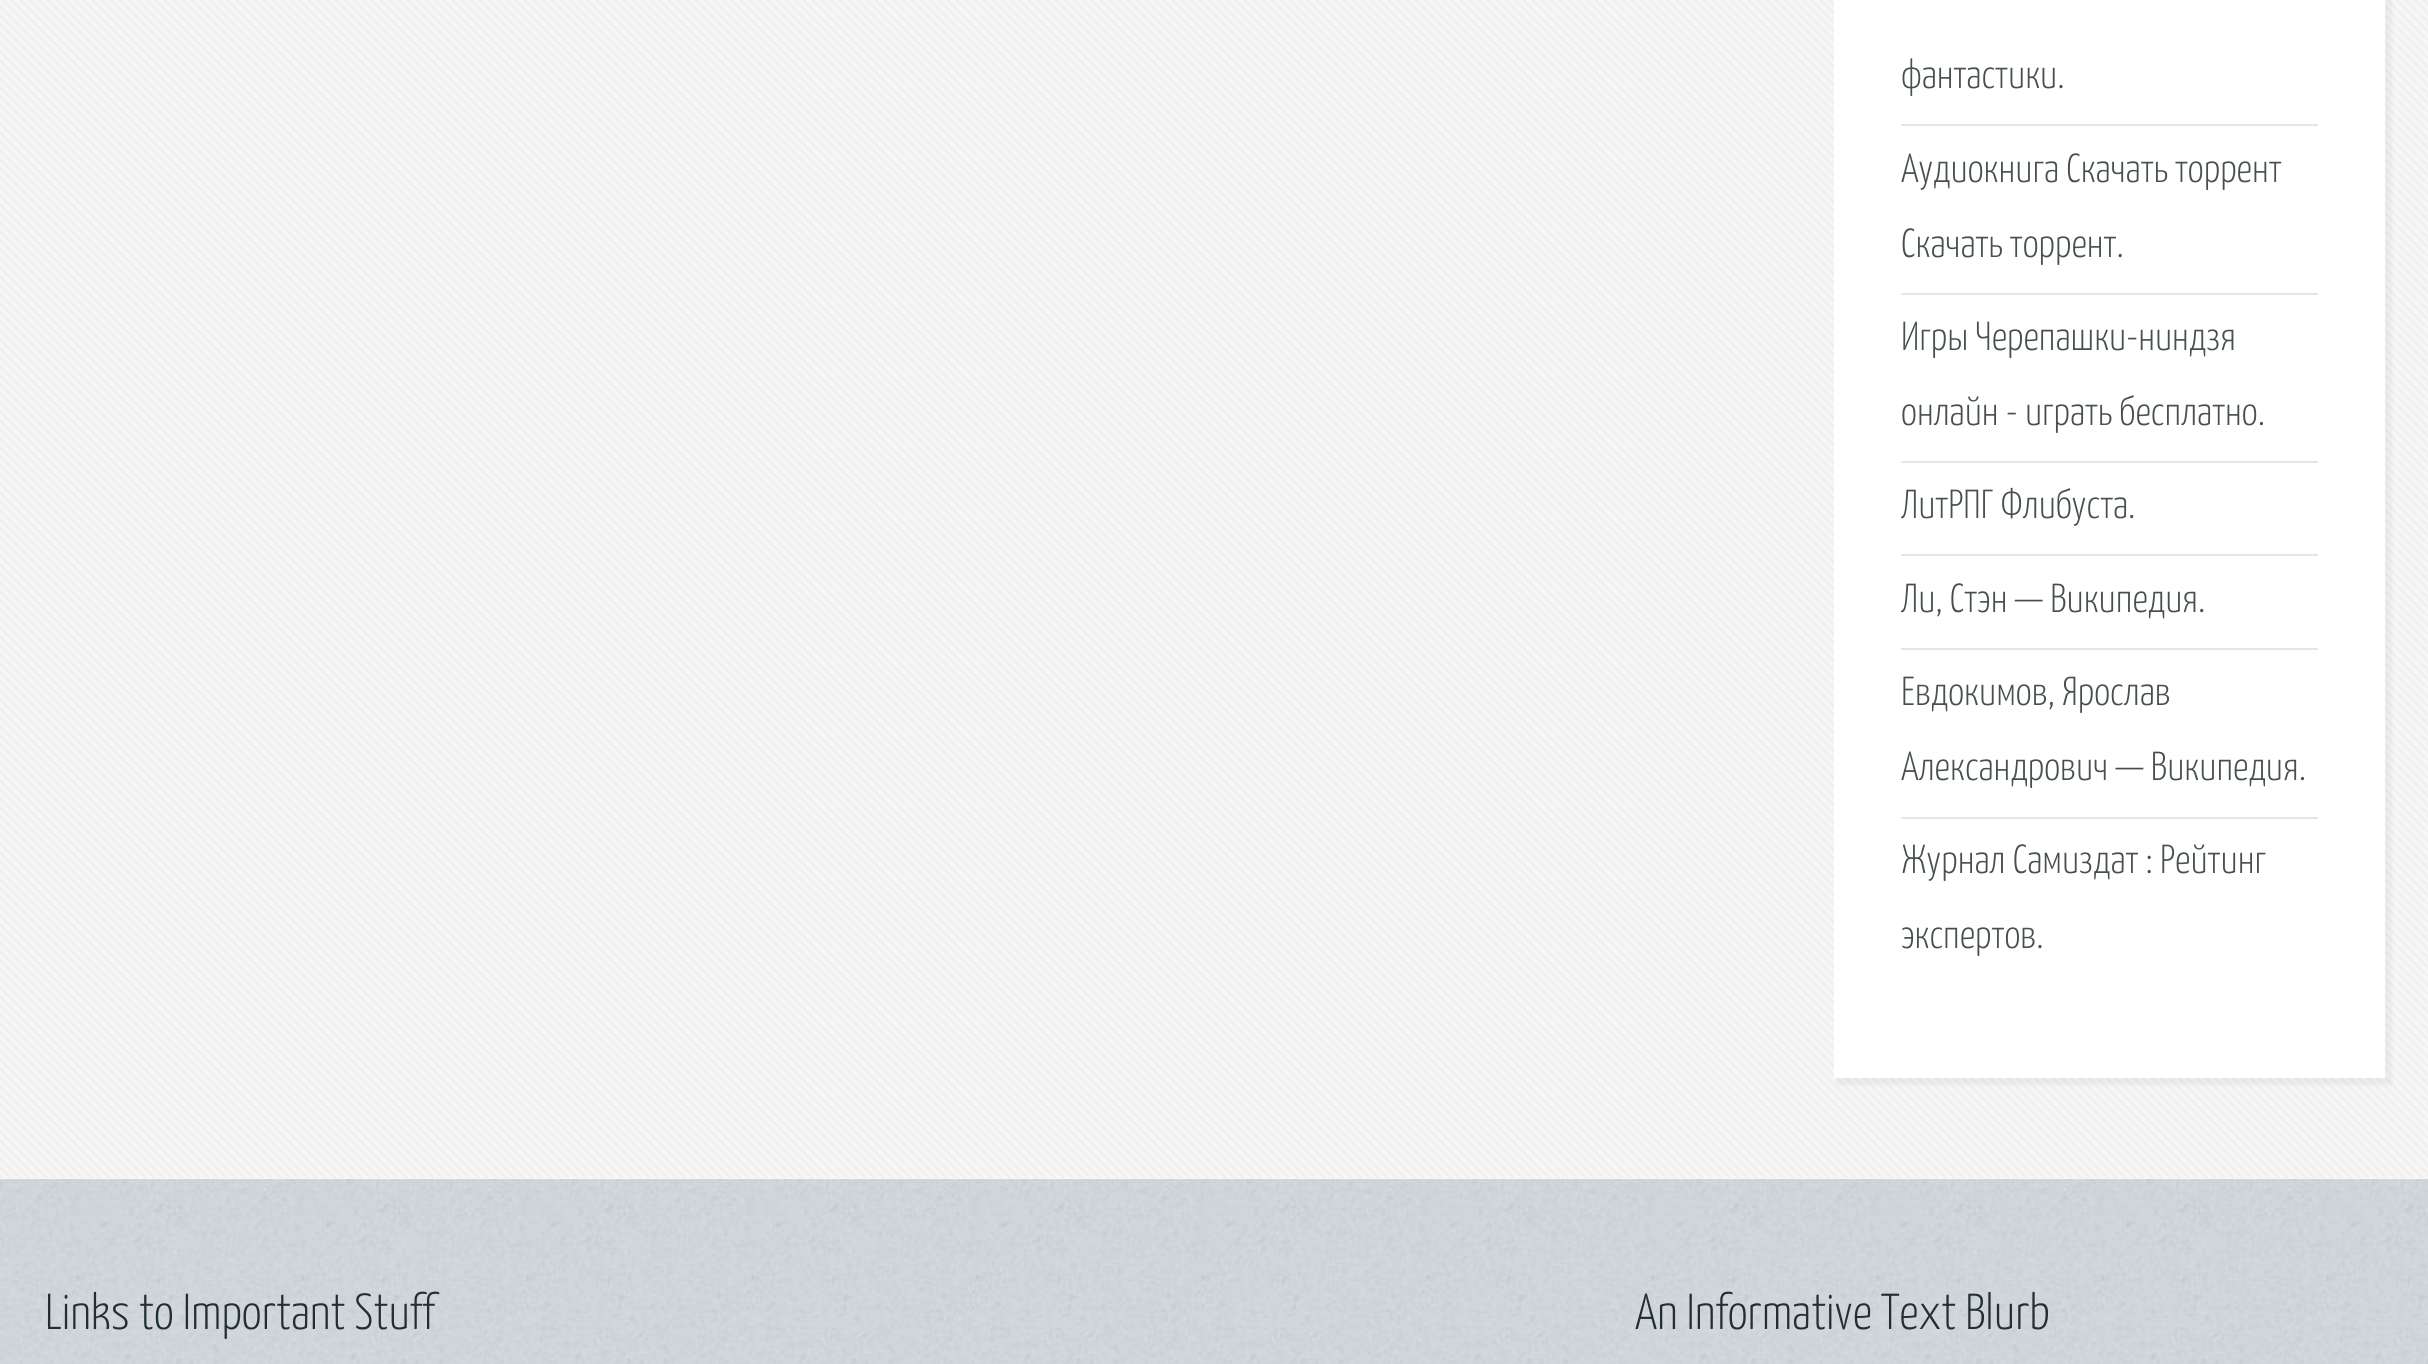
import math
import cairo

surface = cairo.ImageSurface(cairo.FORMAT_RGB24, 2428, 1364)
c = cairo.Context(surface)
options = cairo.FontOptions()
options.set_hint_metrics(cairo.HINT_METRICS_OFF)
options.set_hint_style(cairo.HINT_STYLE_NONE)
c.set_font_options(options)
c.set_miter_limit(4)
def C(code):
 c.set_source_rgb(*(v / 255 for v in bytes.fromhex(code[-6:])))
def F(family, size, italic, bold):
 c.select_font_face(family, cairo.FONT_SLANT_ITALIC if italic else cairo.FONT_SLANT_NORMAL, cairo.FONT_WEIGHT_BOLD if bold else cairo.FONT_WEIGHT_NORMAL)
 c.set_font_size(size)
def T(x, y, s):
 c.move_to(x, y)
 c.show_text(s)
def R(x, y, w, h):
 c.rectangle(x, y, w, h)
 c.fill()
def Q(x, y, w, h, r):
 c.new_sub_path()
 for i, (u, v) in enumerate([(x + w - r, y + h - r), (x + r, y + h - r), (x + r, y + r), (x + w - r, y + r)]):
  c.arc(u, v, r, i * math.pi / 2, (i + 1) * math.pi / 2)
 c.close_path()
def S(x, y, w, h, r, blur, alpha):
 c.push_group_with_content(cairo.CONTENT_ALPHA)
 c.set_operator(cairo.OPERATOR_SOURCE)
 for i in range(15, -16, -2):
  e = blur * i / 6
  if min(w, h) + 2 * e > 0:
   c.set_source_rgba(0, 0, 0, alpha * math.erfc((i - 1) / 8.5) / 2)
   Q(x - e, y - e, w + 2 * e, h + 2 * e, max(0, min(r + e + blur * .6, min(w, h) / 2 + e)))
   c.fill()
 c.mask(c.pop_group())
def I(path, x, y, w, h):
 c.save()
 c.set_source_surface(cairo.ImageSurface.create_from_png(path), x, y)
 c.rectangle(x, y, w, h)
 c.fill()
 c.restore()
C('ffffff')
c.paint()
I('1.png',0,1179,2428,185)
C('f7f7f7')
R(0,0,2428,1179)
I('2.png',0,0,2428,1178)
C('808080')
S(1836,-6,556,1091,0,2,.1)
C('ffffff')
R(1834,0,551,1078)
C('e2e6e8')
R(1901,124,417,2)
F('Yanone Kaffeesatz Light',40.5,0,0)
C('474f51')
T(1901,88,'фантастики.')
C('e2e6e8')
R(1901,293,417,2)
C('474f51')
T(1901,182,'Аудиокнига Скачать торрент')
T(1901,257,'Скачать торрент.')
C('e2e6e8')
R(1901,461,417,2)
C('474f51')
T(1901,350,'Игры Черепашки-ниндзя')
T(1901,425,'онлайн - играть бесплатно.')
C('e2e6e8')
R(1901,554,417,2)
C('474f51')
T(1901,518,'ЛитРПГ Флибуста.')
C('e2e6e8')
R(1901,648,417,2)
C('474f51')
T(1901,612,'Ли, Стэн — Википедия.')
C('e2e6e8')
R(1901,817,417,2)
C('474f51')
T(1901,705,'Евдокимов, Ярослав')
T(1901,780,'Александрович — Википедия.')
T(1901,873,'Журнал Самиздат : Рейтинг')
T(1901,948,'экспертов.')
F('Yanone Kaffeesatz Light',50.5,0,0)
C('212f35')
T(45,1329,'Links to Important Stuff')
T(1635,1329,'An Informative Text Blurb')
surface.write_to_png('o.png')
